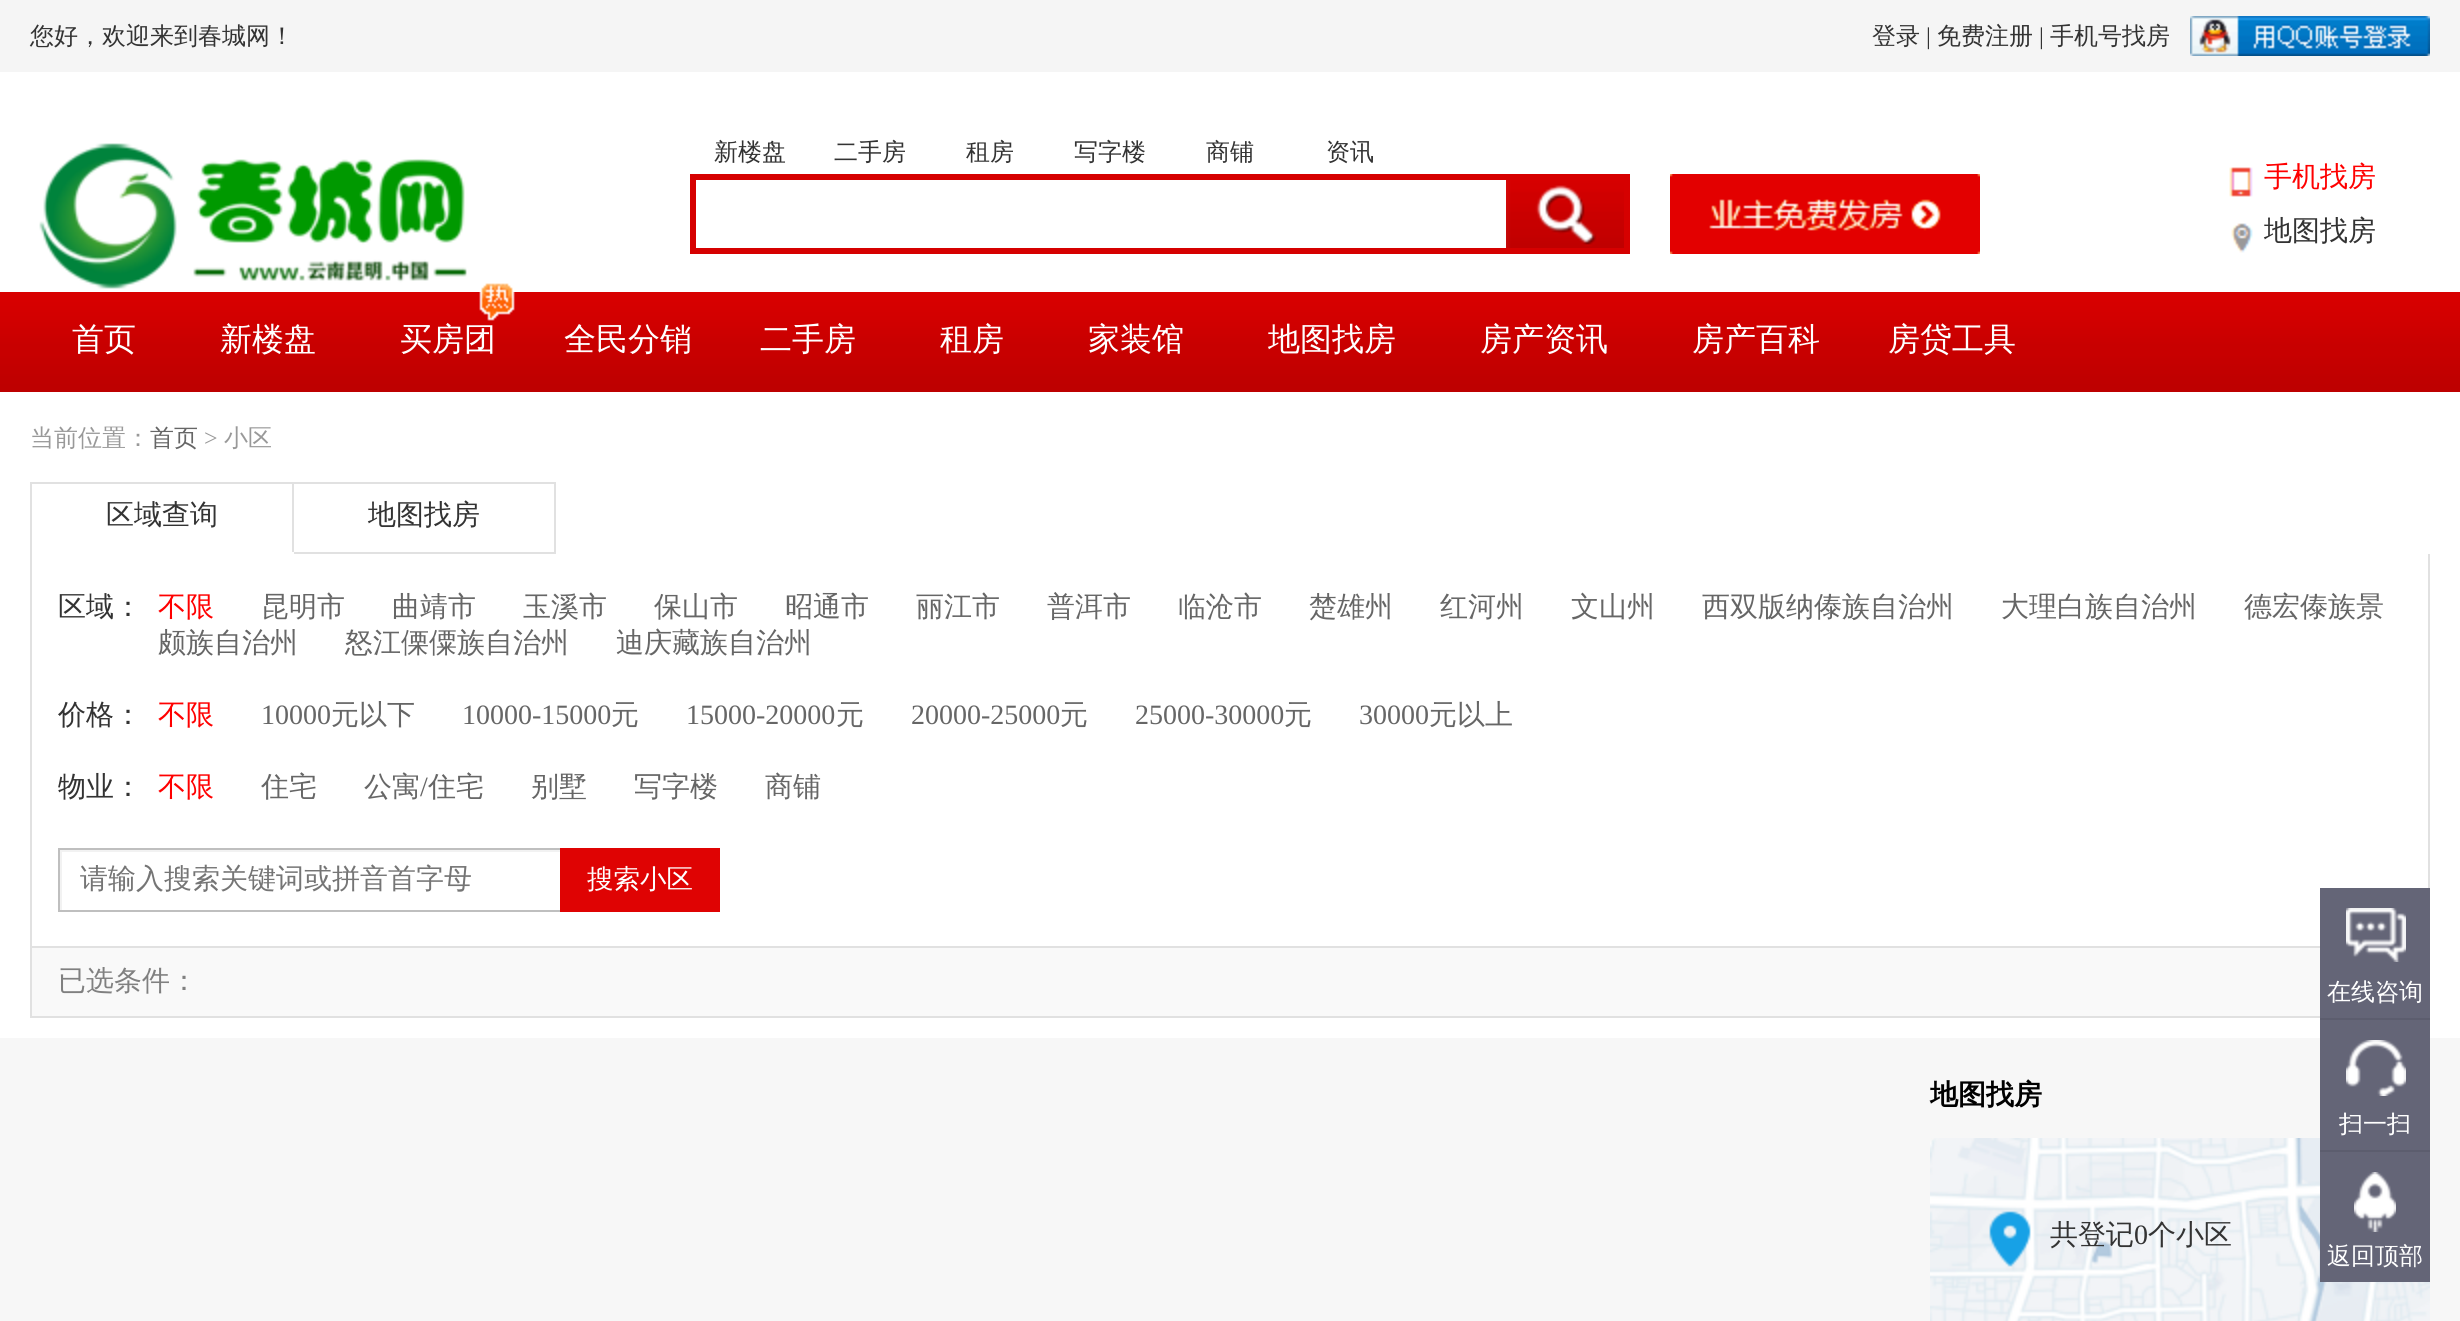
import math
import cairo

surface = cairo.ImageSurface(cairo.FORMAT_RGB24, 2460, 1321)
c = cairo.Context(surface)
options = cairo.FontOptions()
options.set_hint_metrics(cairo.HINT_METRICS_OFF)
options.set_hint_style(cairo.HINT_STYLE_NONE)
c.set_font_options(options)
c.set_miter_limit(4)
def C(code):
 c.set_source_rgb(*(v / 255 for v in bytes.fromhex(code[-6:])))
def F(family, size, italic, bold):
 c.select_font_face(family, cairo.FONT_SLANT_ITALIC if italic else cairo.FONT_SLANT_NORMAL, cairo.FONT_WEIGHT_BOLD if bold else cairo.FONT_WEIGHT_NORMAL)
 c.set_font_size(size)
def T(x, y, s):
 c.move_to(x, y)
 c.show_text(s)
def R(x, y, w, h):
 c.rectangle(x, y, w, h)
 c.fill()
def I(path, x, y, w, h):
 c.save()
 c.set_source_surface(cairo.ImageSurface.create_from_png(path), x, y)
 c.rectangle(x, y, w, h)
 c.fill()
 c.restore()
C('ffffff')
c.paint()
C('f5f5f5')
R(0,0,2460,72)
F('WenQuanYi Zen Hei Medium',24,0,0)
C('333333')
T(30,44,'您好，欢迎来到春城网！')
T(1872,44,'登录')
F('Liberation Serif',24,0,0)
T(1926,44,'|')
F('WenQuanYi Zen Hei Medium',24,0,0)
T(1937,44,'免费注册')
F('Liberation Serif',24,0,0)
T(2039,44,'|')
F('WenQuanYi Zen Hei Medium',24,0,0)
T(2050,44,'手机号找房')
I('1.png',2190,16,240,40)
I('2.png',0,292,2460,100)
I('3.png',39,143,428,146)
T(714,160,'新楼盘')
T(834,160,'二手房')
T(966,160,'租房')
T(1074,160,'写字楼')
T(1206,160,'商铺')
T(1326,160,'资讯')
C('d60000')
R(690,174,940,6)
R(690,248,816,6)
R(690,174,6,80)
R(1624,174,6,80)
R(1506,248,124,6)
I('4.png',1506,180,118,68)
I('5.png',1670,174,310,80)
I('6.png',2229,167,24,30)
F('WenQuanYi Zen Hei Medium',28,0,0)
C('ff0000')
T(2264,186,'手机找房')
I('7.png',2231,223,22,30)
C('333333')
T(2264,240,'地图找房')
F('WenQuanYi Zen Hei Medium',32,0,0)
C('ffffff')
T(72,350,'首页')
T(220,350,'新楼盘')
I('8.png',479,283,36,38)
T(400,350,'买房团')
T(564,350,'全民分销')
T(760,350,'二手房')
T(940,350,'租房')
T(1088,350,'家装馆')
T(1268,350,'地图找房')
T(1480,350,'房产资讯')
T(1692,350,'房产百科')
T(1888,350,'房贷工具')
F('WenQuanYi Zen Hei Medium',24,0,0)
C('999999')
T(30,446,'当前位置：')
C('666666')
T(150,446,'首页')
F('Liberation Serif',24,0,0)
C('999999')
T(204,446,'>')
F('WenQuanYi Zen Hei Medium',24,0,0)
T(224,446,'小区')
C('e1e1e1')
R(30,482,2,72)
R(32,482,524,2)
R(292,482,2,72)
C('ffffff')
R(292,552,2,2)
F('WenQuanYi Zen Hei Medium',28,0,0)
C('333333')
T(106,524,'区域查询')
C('e1e1e1')
R(554,482,2,72)
R(294,552,262,2)
C('333333')
T(368,524,'地图找房')
C('e1e1e1')
R(2428,554,2,334)
R(30,946,2290,2)
R(30,554,2,394)
C('333333')
T(58,616,'区域：')
C('ff0000')
T(158,616,'不限')
C('666666')
T(261,616,'昆明市')
T(392,616,'曲靖市')
T(523,616,'玉溪市')
T(654,616,'保山市')
T(785,616,'昭通市')
T(916,616,'丽江市')
T(1047,616,'普洱市')
T(1178,616,'临沧市')
T(1309,616,'楚雄州')
T(1440,616,'红河州')
T(1571,616,'文山州')
T(1702,616,'西双版纳傣族自治州')
T(2001,616,'大理白族自治州')
T(2244,616,'德宏傣族景')
T(158,652,'颇族自治州')
T(345,652,'怒江傈僳族自治州')
T(616,652,'迪庆藏族自治州')
C('333333')
T(58,724,'价格：')
C('ff0000')
T(158,724,'不限')
F('Liberation Serif',28,0,0)
C('666666')
T(261,724,'10000')
F('WenQuanYi Zen Hei Medium',28,0,0)
T(331,724,'元以下')
F('Liberation Serif',28,0,0)
T(462,724,'10000-15000')
F('WenQuanYi Zen Hei Medium',28,0,0)
T(611,724,'元')
F('Liberation Serif',28,0,0)
T(686,724,'15000-20000')
F('WenQuanYi Zen Hei Medium',28,0,0)
T(836,724,'元')
F('Liberation Serif',28,0,0)
T(911,724,'20000-25000')
F('WenQuanYi Zen Hei Medium',28,0,0)
T(1060,724,'元')
F('Liberation Serif',28,0,0)
T(1135,724,'25000-30000')
F('WenQuanYi Zen Hei Medium',28,0,0)
T(1284,724,'元')
F('Liberation Serif',28,0,0)
T(1359,724,'30000')
F('WenQuanYi Zen Hei Medium',28,0,0)
T(1429,724,'元以上')
C('333333')
T(58,796,'物业：')
C('ff0000')
T(158,796,'不限')
C('666666')
T(261,796,'住宅')
T(364,796,'公寓')
F('Liberation Serif',28,0,0)
T(420,796,'/')
F('WenQuanYi Zen Hei Medium',28,0,0)
T(428,796,'住宅')
T(531,796,'别墅')
T(634,796,'写字楼')
T(765,796,'商铺')
c.save()
c.rectangle(60,850,520,60)
c.clip()
C('f2f2f2')
c.set_fill_rule(cairo.FILL_RULE_EVEN_ODD)
c.new_path()
c.move_to(-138,652)
c.line_to(778,652)
c.line_to(778,1108)
c.line_to(-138,1108)
c.close_path()
c.move_to(62,852)
c.line_to(582,852)
c.line_to(582,912)
c.line_to(62,912)
c.close_path()
c.fill()
c.restore()
C('bfbfbf')
R(58,848,502,2)
R(58,910,502,2)
R(58,848,2,64)
C('757575')
T(80,888,'请输入搜索关键词或拼音首字母')
C('df0303')
R(560,848,160,64)
F('WenQuanYi Zen Hei Medium',26.5,0,0)
C('ffffff')
T(587,888,'搜索小区')
C('f9f9f9')
R(32,948,2288,68)
C('e1e1e1')
R(30,1016,2290,2)
R(30,948,2,70)
F('WenQuanYi Zen Hei Medium',28,0,0)
C('808080')
T(58,990,'已选条件：')
C('f7f7f7')
R(0,1038,2460,283)
F('WenQuanYi Zen Hei',28,0,1)
C('000000')
T(1930,1104,'地图找房')
I('9.png',1930,1138,500,183)
F('WenQuanYi Zen Hei Medium',28,0,0)
C('333333')
T(2050,1244,'共登记')
F('Liberation Serif',28,0,0)
T(2134,1244,'0')
F('WenQuanYi Zen Hei Medium',28,0,0)
T(2148,1244,'个小区')
C('646577')
R(2320,888,110,130)
C('5c5d6e')
R(2320,1018,110,2)
I('10.png',2346,908,60,54)
F('WenQuanYi Zen Hei Medium',24,0,0)
C('ffffff')
T(2327,1000,'在线咨询')
C('646577')
R(2320,1020,110,130)
C('5c5d6e')
R(2320,1150,110,2)
I('11.png',2346,1040,60,56)
C('ffffff')
T(2339,1132,'扫一扫')
C('646577')
R(2320,1152,110,130)
I('12.png',2354,1172,42,60)
C('ffffff')
T(2327,1264,'返回顶部')
surface.write_to_png('o.png')
